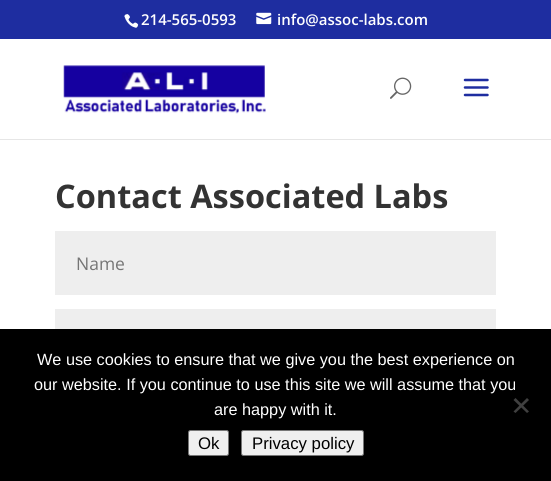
import math
import cairo

surface = cairo.ImageSurface(cairo.FORMAT_RGB24, 551, 481)
c = cairo.Context(surface)
options = cairo.FontOptions()
options.set_hint_metrics(cairo.HINT_METRICS_OFF)
options.set_hint_style(cairo.HINT_STYLE_NONE)
c.set_font_options(options)
c.set_miter_limit(4)
def C(code):
 c.set_source_rgb(*(v / 255 for v in bytes.fromhex(code[-6:])))
def F(family, size, italic, bold):
 c.select_font_face(family, cairo.FONT_SLANT_ITALIC if italic else cairo.FONT_SLANT_NORMAL, cairo.FONT_WEIGHT_BOLD if bold else cairo.FONT_WEIGHT_NORMAL)
 c.set_font_size(size)
def T(x, y, s):
 c.move_to(x, y)
 c.show_text(s)
def R(x, y, w, h):
 c.rectangle(x, y, w, h)
 c.fill()
def Q(x, y, w, h, r):
 c.new_sub_path()
 for i, (u, v) in enumerate([(x + w - r, y + h - r), (x + r, y + h - r), (x + r, y + r), (x + w - r, y + r)]):
  c.arc(u, v, r, i * math.pi / 2, (i + 1) * math.pi / 2)
 c.close_path()
def I(path, x, y, w, h):
 c.save()
 c.set_source_surface(cairo.ImageSurface.create_from_png(path), x, y)
 c.rectangle(x, y, w, h)
 c.fill()
 c.restore()
C('ffffff')
c.paint()
C('1e2da0')
R(0,0,551,39)
I('1.png',124,14,15,14)
F('Open Sans SemiBold',15,0,0)
C('ffffff')
T(141,25,'214-565-0593')
I('2.png',256,12,16,13)
T(277,25,'info@assoc-labs.com')
C('e6e6e6')
R(0,139,551,1)
I('3.png',63,65,203,49)
I('4.png',390,77,22,22)
I('5.png',463,78,26,19)
F('Open Sans',32.5,0,1)
C('333333')
T(55,208,'Contact Associated Labs')
C('eeeeee')
R(55,231,441,64)
F('Open Sans',17.5,0,0)
C('757575')
T(76,270,'Name')
C('eeeeee')
R(55,309,441,20)
C('000000')
R(0,329,551,152)
F('Liberation Sans',16.25,0,0)
C('ffffff')
T(37,365,'We use cookies to ensure that we give you the best experience on')
T(34,390,'our website. If you continue to use this site we will assume that you')
T(214,415,'are happy with it.')
C('404040')
c.new_path()
c.move_to(527,398)
c.line_to(529,400)
c.line_to(515.5,413)
c.line_to(513.5,411.5)
c.close_path()
c.fill()
c.new_path()
c.move_to(513.5,400)
c.line_to(515.5,398)
c.line_to(529,411.5)
c.line_to(527,413)
c.close_path()
c.fill()
C('efefef')
Q(188.5,430.5,40,25,2)
c.fill_preserve()
C('767676')
c.set_line_width(1)
c.stroke()
F('Liberation Sans',16.75,0,0)
C('000000')
T(198,449,'Ok')
C('efefef')
Q(241.5,430.5,122,25,2)
c.fill_preserve()
C('767676')
c.stroke()
C('000000')
T(252,449,'Privacy policy')
surface.write_to_png('o.png')
